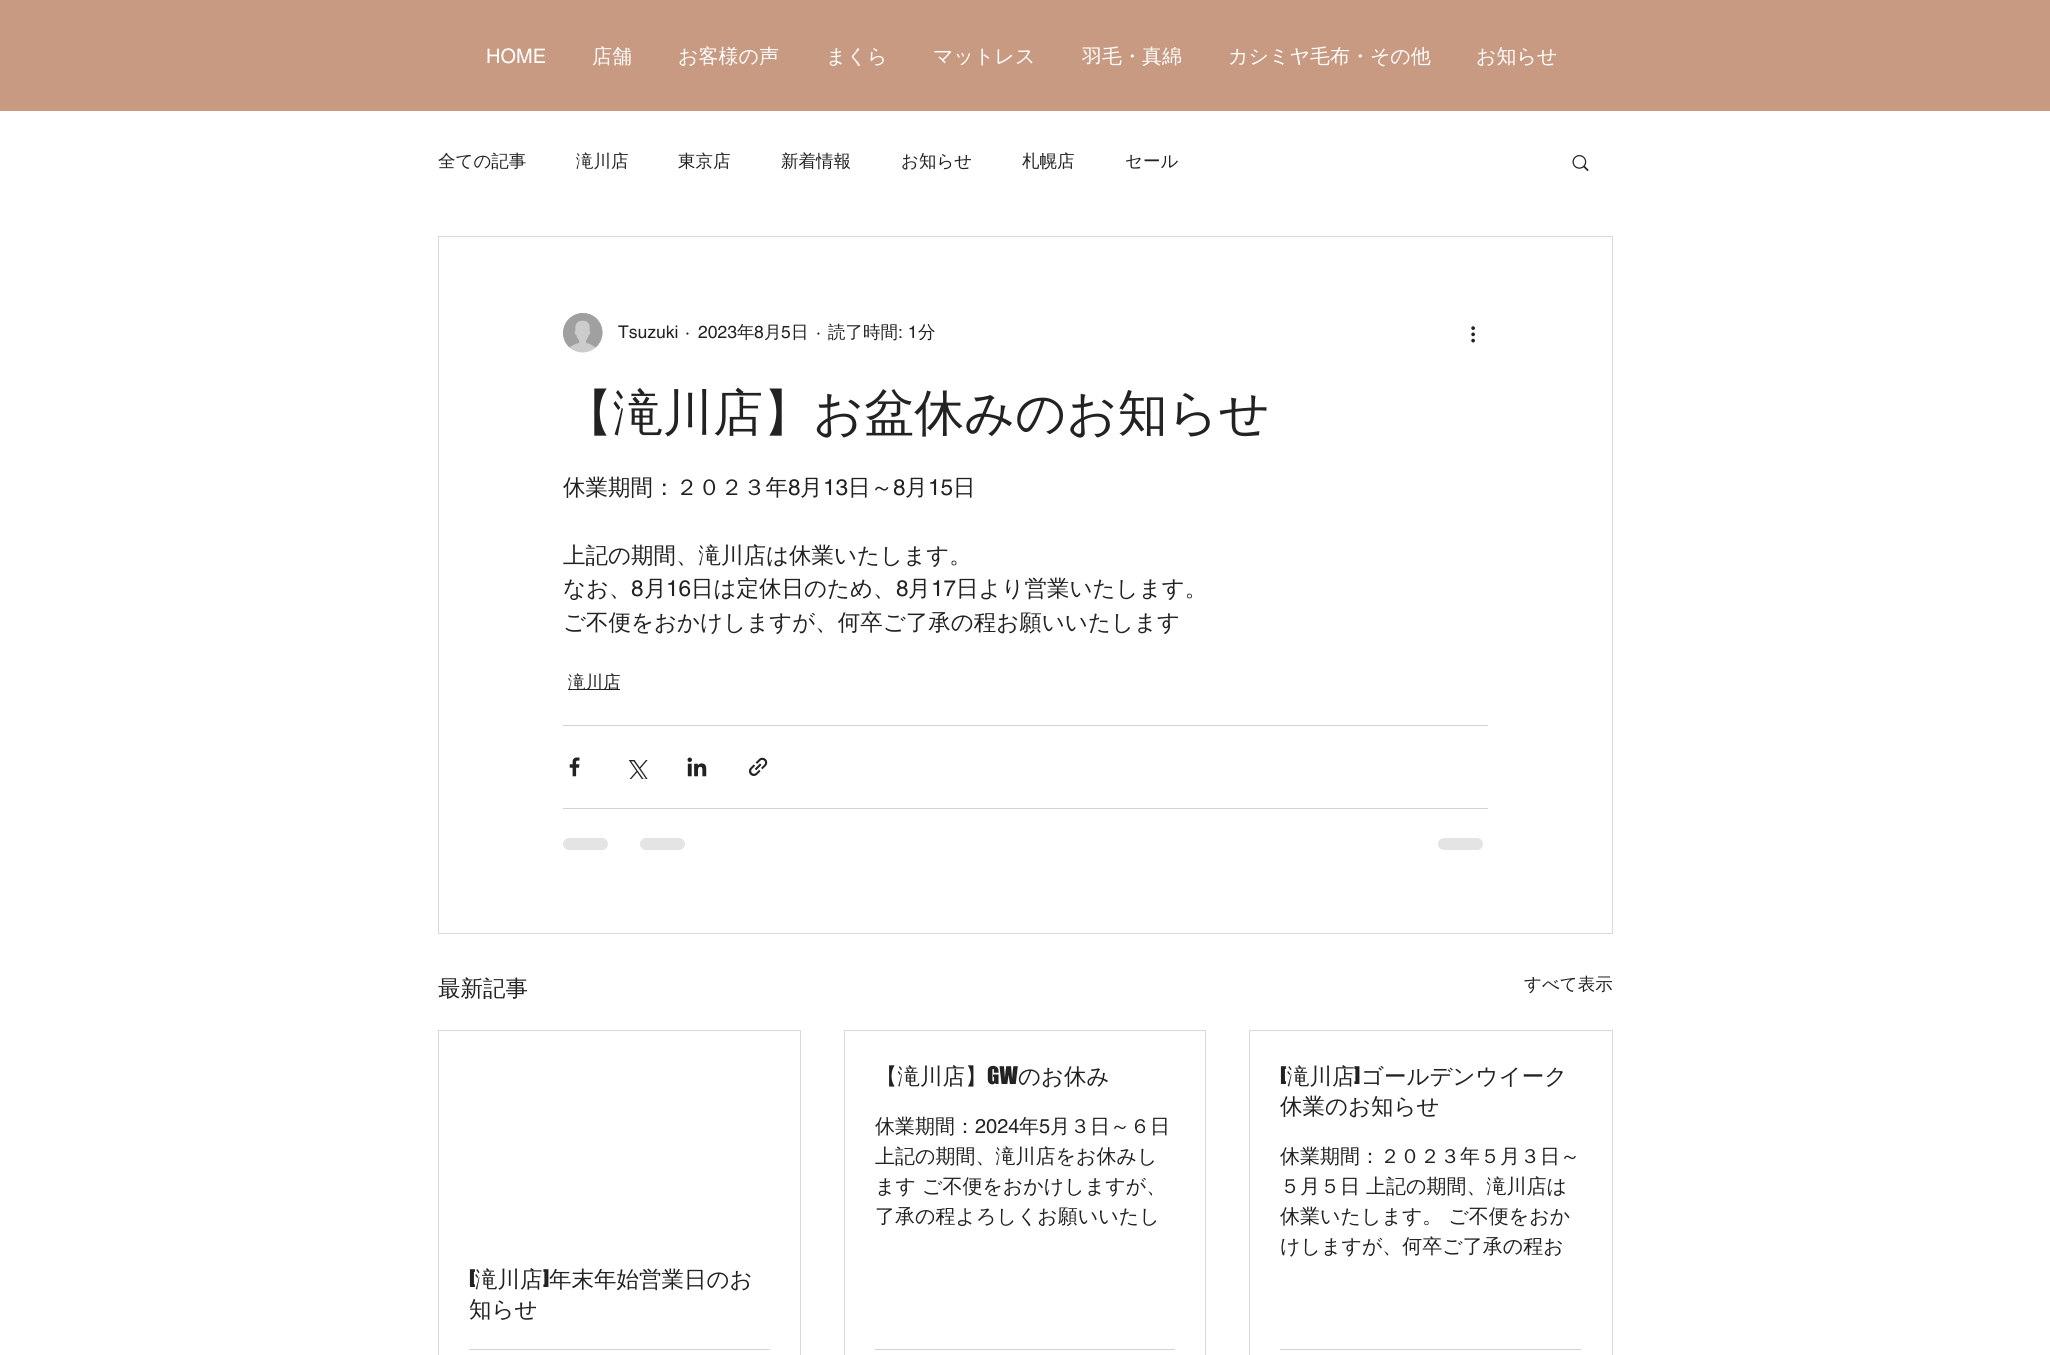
import math
import cairo

surface = cairo.ImageSurface(cairo.FORMAT_RGB24, 2050, 1355)
c = cairo.Context(surface)
options = cairo.FontOptions()
options.set_hint_metrics(cairo.HINT_METRICS_OFF)
options.set_hint_style(cairo.HINT_STYLE_NONE)
c.set_font_options(options)
c.set_miter_limit(4)
def C(code):
 c.set_source_rgb(*(v / 255 for v in bytes.fromhex(code[-6:])))
def F(family, size, italic, bold):
 c.select_font_face(family, cairo.FONT_SLANT_ITALIC if italic else cairo.FONT_SLANT_NORMAL, cairo.FONT_WEIGHT_BOLD if bold else cairo.FONT_WEIGHT_NORMAL)
 c.set_font_size(size)
def T(x, y, s):
 c.move_to(x, y)
 c.show_text(s)
def R(x, y, w, h):
 c.rectangle(x, y, w, h)
 c.fill()
def Q(x, y, w, h, r):
 c.new_sub_path()
 for i, (u, v) in enumerate([(x + w - r, y + h - r), (x + r, y + h - r), (x + r, y + r), (x + w - r, y + r)]):
  c.arc(u, v, r, i * math.pi / 2, (i + 1) * math.pi / 2)
 c.close_path()
def I(path, x, y, w, h):
 c.save()
 c.set_source_surface(cairo.ImageSurface.create_from_png(path), x, y)
 c.rectangle(x, y, w, h)
 c.fill()
 c.restore()
C('ffffff')
c.paint()
C('c89a82')
R(0,0,2050,111)
F('helvetica',20,0,0)
C('ffffff')
T(486,63,'HOME')
F('WenQuanYi Zen Hei Medium',20,0,0)
T(592,63,'店舗')
T(678,63,'お客様の声')
T(826,63,'まくら')
T(933,63,'マットレス')
T(1082,63,'羽毛・真綿')
T(1228,63,'カシミヤ毛布・その他')
T(1476,63,'お知らせ')
F('WenQuanYi Zen Hei Medium',17.5,0,0)
C('222222')
T(438,167,'全ての記事')
T(576,167,'滝川店')
T(678,167,'東京店')
T(781,167,'新着情報')
T(901,167,'お知らせ')
T(1022,167,'札幌店')
T(1125,167,'セール')
I('1.png',1572,155,17,17)
c.rectangle(438.5,236.5,1174,697)
C('d9d9d9')
c.set_line_width(1)
c.stroke()
I('2.png',563,313,40,40)
F('helvetica',17.5,0,0)
C('222222')
T(618,338,'Tsuzuki')
T(685,338,'·')
T(698,338,'2023')
F('WenQuanYi Zen Hei Medium',17.5,0,0)
T(737,338,'年')
F('helvetica',17.5,0,0)
T(754,338,'8')
F('WenQuanYi Zen Hei Medium',17.5,0,0)
T(764,338,'月')
F('helvetica',17.5,0,0)
T(781,338,'5')
F('WenQuanYi Zen Hei Medium',17.5,0,0)
T(791,338,'日')
F('helvetica',17.5,0,0)
T(816,338,'·')
F('WenQuanYi Zen Hei Medium',17.5,0,0)
T(828,338,'読了時間')
F('helvetica',17.5,0,0)
T(898,338,': 1')
F('WenQuanYi Zen Hei Medium',17.5,0,0)
T(918,338,'分')
I('3.png',1471,326,4,17)
F('WenQuanYi Zen Hei Medium',50,0,0)
T(563,430,'【滝川店】お盆休みのお知らせ')
F('WenQuanYi Zen Hei Medium',22.5,0,0)
T(563,495,'休業期間：２０２３年')
F('helvetica',22.5,0,0)
T(788,495,'8')
F('WenQuanYi Zen Hei Medium',22.5,0,0)
T(800,495,'月')
F('helvetica',22.5,0,0)
T(823,495,'13')
F('WenQuanYi Zen Hei Medium',22.5,0,0)
T(848,495,'日～')
F('helvetica',22.5,0,0)
T(893,495,'8')
F('WenQuanYi Zen Hei Medium',22.5,0,0)
T(905,495,'月')
F('helvetica',22.5,0,0)
T(928,495,'15')
F('WenQuanYi Zen Hei Medium',22.5,0,0)
T(953,495,'日')
T(563,563,'上記の期間、滝川店は休業いたします。')
T(563,596,'なお、')
F('helvetica',22.5,0,0)
T(631,596,'8')
F('WenQuanYi Zen Hei Medium',22.5,0,0)
T(644,596,'月')
F('helvetica',22.5,0,0)
T(666,596,'16')
F('WenQuanYi Zen Hei Medium',22.5,0,0)
T(691,596,'日は定休日のため、')
F('helvetica',22.5,0,0)
T(896,596,'8')
F('WenQuanYi Zen Hei Medium',22.5,0,0)
T(908,596,'月')
F('helvetica',22.5,0,0)
T(931,596,'17')
F('WenQuanYi Zen Hei Medium',22.5,0,0)
T(956,596,'日より営業いたします。')
T(563,630,'ご不便をおかけしますが、何卒ご了承の程お願いいたします')
R(568,689,52,1)
F('WenQuanYi Zen Hei Medium',17.5,0,0)
T(568,688,'滝川店')
C('d3d3d3')
R(563,725,925,1)
I('4.png',569,757,11,20)
I('5.png',628,760,20,19)
I('6.png',687,757,20,20)
I('7.png',749,757,19,19)
R(563,808,925,1)
C('e4e4e4')
Q(563,838,45,12,6)
c.fill()
Q(640,838,45,12,6)
c.fill()
Q(1438,838,45,12,6)
c.fill()
F('WenQuanYi Zen Hei Medium',22.5,0,0)
C('222222')
T(438,996,'最新記事')
F('WenQuanYi Zen Hei Medium',17.5,0,0)
T(1524,990,'すべて表示')
c.rectangle(844.5,1030.5,361,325)
C('d9d9d9')
c.stroke()
F('WenQuanYi Zen Hei Medium',22.5,0,0)
C('222222')
T(875,1084,'【滝川店】')
F('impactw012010',22.5,0,0)
T(987,1084,'GW')
F('WenQuanYi Zen Hei Medium',22.5,0,0)
T(1018,1084,'のお休み')
F('WenQuanYi Zen Hei Medium',20,0,0)
T(875,1133,'休業期間：')
F('helvetica',20,0,0)
T(975,1133,'2024')
F('WenQuanYi Zen Hei Medium',20,0,0)
T(1019,1133,'年')
F('helvetica',20,0,0)
T(1039,1133,'5')
F('WenQuanYi Zen Hei Medium',20,0,0)
T(1050,1133,'月３日～６日')
T(875,1163,'上記の期間、滝川店をお休みし')
T(875,1193,'ます ご不便をおかけしますが、')
T(875,1223,'了承の程よろしくお願いいたし')
C('d3d3d3')
R(875,1349,300,1)
c.rectangle(1249.5,1030.5,363,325)
C('d9d9d9')
c.stroke()
F('impactw012010',22.5,0,0)
C('222222')
T(1280,1084,'[')
F('WenQuanYi Zen Hei Medium',22.5,0,0)
T(1287,1084,'滝川店')
F('impactw012010',22.5,0,0)
T(1354,1084,']')
F('WenQuanYi Zen Hei Medium',22.5,0,0)
T(1361,1084,'ゴールデンウイーク')
T(1280,1114,'休業のお知らせ')
F('WenQuanYi Zen Hei Medium',20,0,0)
T(1280,1163,'休業期間：２０２３年５月３日～')
T(1280,1193,'５月５日 上記の期間、滝川店は')
T(1280,1223,'休業いたします。 ご不便をおか')
T(1280,1253,'けしますが、何卒ご了承の程お')
C('d3d3d3')
R(1280,1349,301,1)
c.rectangle(438.5,1030.5,362,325)
C('d9d9d9')
c.stroke()
F('impactw012010',22.5,0,0)
C('222222')
T(469,1287,'[')
F('WenQuanYi Zen Hei Medium',22.5,0,0)
T(475,1287,'滝川店')
F('impactw012010',22.5,0,0)
T(543,1287,']')
F('WenQuanYi Zen Hei Medium',22.5,0,0)
T(549,1287,'年末年始営業日のお')
T(469,1317,'知らせ')
C('d3d3d3')
R(469,1349,301,1)
surface.write_to_png('o.png')
